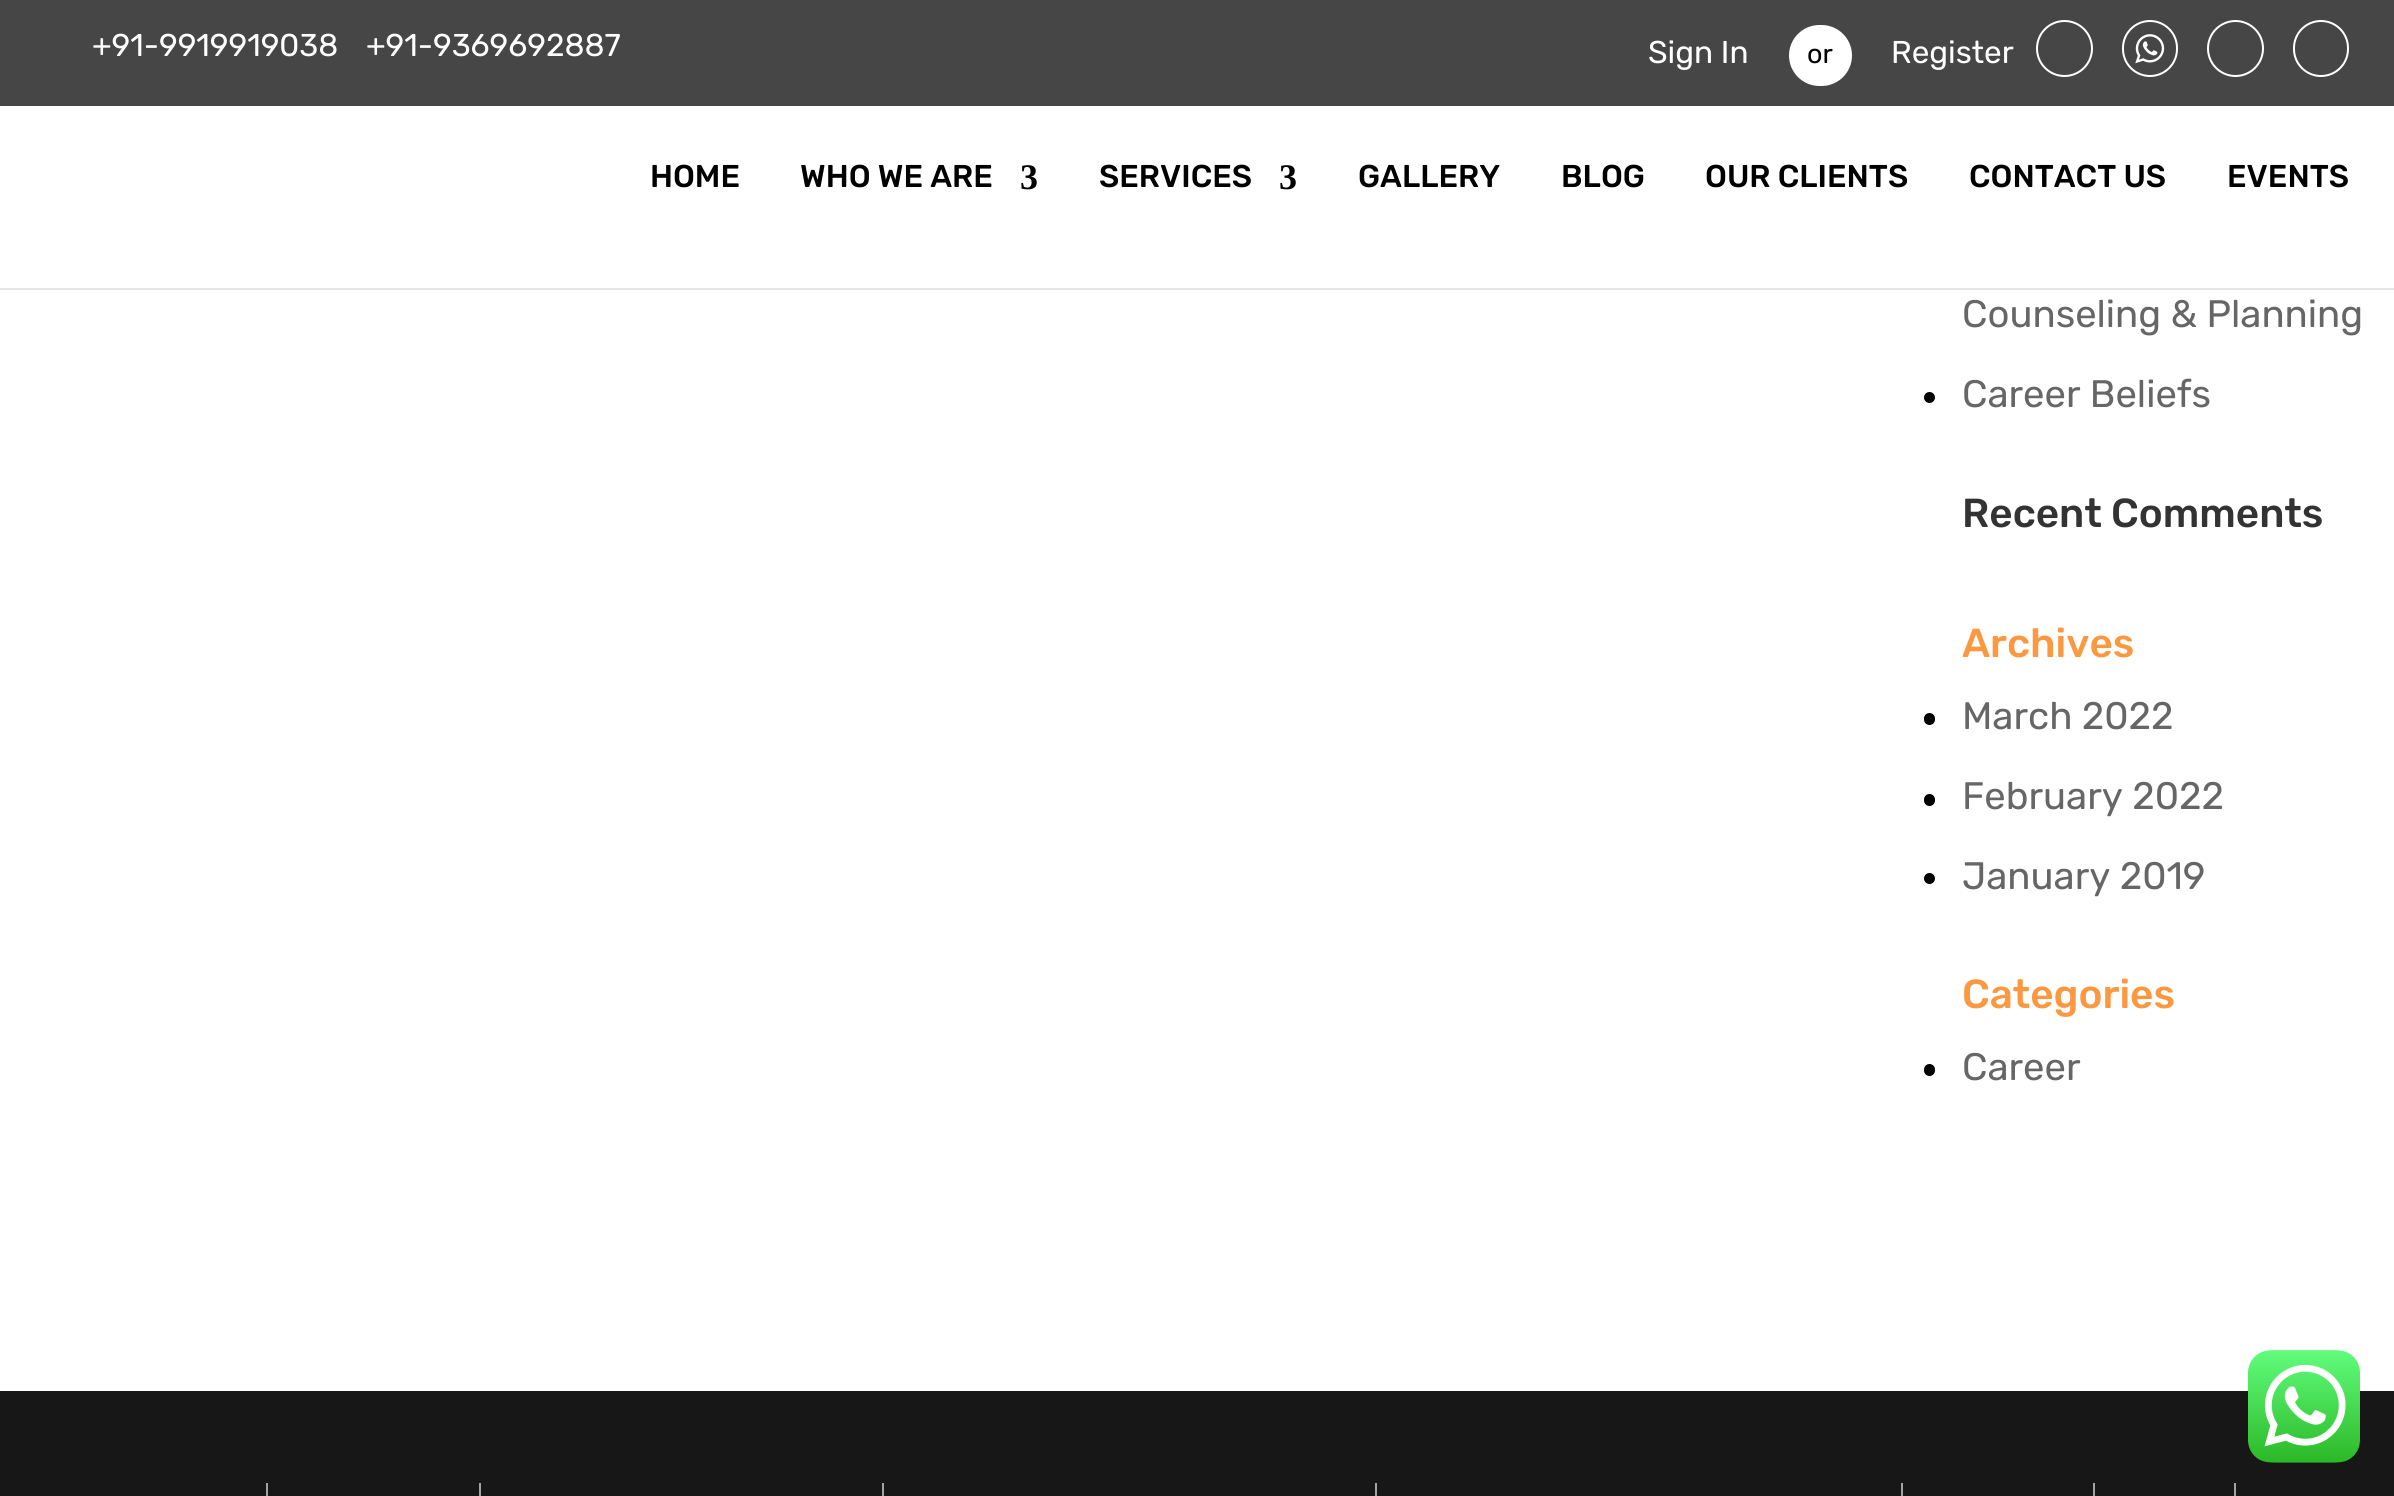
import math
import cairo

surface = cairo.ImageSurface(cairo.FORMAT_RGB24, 2394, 1496)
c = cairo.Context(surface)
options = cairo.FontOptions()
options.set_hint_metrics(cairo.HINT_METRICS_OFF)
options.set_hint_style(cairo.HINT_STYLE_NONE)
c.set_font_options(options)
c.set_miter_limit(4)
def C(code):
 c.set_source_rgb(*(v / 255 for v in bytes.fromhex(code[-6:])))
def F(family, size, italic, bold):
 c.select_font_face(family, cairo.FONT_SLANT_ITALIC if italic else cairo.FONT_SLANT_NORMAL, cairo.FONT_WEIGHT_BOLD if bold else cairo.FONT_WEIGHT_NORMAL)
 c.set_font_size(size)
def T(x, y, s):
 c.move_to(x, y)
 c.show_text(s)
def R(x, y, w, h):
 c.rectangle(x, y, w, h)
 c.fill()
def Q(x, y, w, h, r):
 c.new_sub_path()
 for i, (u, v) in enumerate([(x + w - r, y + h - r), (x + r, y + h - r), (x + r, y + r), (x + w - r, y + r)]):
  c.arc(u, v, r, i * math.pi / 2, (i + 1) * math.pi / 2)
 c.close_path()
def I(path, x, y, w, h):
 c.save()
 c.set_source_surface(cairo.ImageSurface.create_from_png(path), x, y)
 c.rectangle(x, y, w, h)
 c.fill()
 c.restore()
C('ffffff')
c.paint()
C('464646')
R(0,0,2394,106)
F('Rubik',31.5,0,0)
C('ffffff')
T(92,56,'+91-9919919038')
T(366,56,'+91-9369692887')
T(1648,63,'Sign In')
Q(1789,25,63,61,30.5)
c.fill()
F('Rubik',27,0,0)
C('000000')
T(1807,63,'or')
F('Rubik',31.5,0,0)
C('ffffff')
T(1891,63,'Register')
c.new_path()
c.arc(2064.5,48.5,27.5,0,2 * math.pi)
c.stroke()
Q(2123,21,54,55,27)
c.stroke()
I('1.png',2135,34,30,30)
c.arc(2235.5,48.5,27.5,0,2 * math.pi)
c.stroke()
Q(2294,21,54,55,27)
c.stroke()
C('e6e6e6')
R(0,288,2394,2)
F('Rubik Medium',31.5,0,0)
C('000000')
T(650,187,'HOME')
T(800,187,'WHO WE ARE')
F('Liberation Serif',36,0,1)
T(1020,189,'3')
F('Rubik Medium',31.5,0,0)
T(1099,187,'SERVICES')
F('Liberation Serif',36,0,1)
T(1279,189,'3')
F('Rubik Medium',31.5,0,0)
T(1358,187,'GALLERY')
T(1561,187,'BLOG')
T(1705,187,'OUR CLIENTS')
T(1969,187,'CONTACT US')
T(2227,187,'EVENTS')
F('Rubik',38.25,0,0)
C('666666')
T(1962,327,'Counseling & Planning')
C('000000')
c.new_path()
c.arc(1929.5,397.5,5.5,0,2 * math.pi)
c.fill()
C('666666')
T(1962,407,'Career Beliefs')
F('Rubik Medium',40.5,0,0)
C('333333')
T(1962,527,'Recent Comments')
C('fb9840')
T(1962,657,'Archives')
C('000000')
Q(1924,713,11,12,5.5)
c.fill()
F('Rubik',38.25,0,0)
C('666666')
T(1962,729,'March 2022')
C('000000')
Q(1924,794,11,12,5.5)
c.fill()
C('666666')
T(1962,809,'February 2022')
C('000000')
c.new_path()
c.arc(1929.5,878.5,5.5,0,2 * math.pi)
c.fill()
C('666666')
T(1962,889,'January 2019')
F('Rubik Medium',40.5,0,0)
C('fb9840')
T(1962,1008,'Categories')
C('000000')
Q(1924,1064,11,12,5.5)
c.fill()
F('Rubik',38.25,0,0)
C('666666')
T(1962,1080,'Career')
C('171717')
R(0,1391,2394,105)
C('a4a2a2')
R(266,1483,2,13)
R(479,1483,2,13)
R(882,1483,2,13)
R(1375,1483,2,13)
R(1901,1483,2,13)
R(2093,1483,2,13)
R(2234,1483,2,13)
I('2.png',2248,1350,112,113)
surface.write_to_png('o.png')
